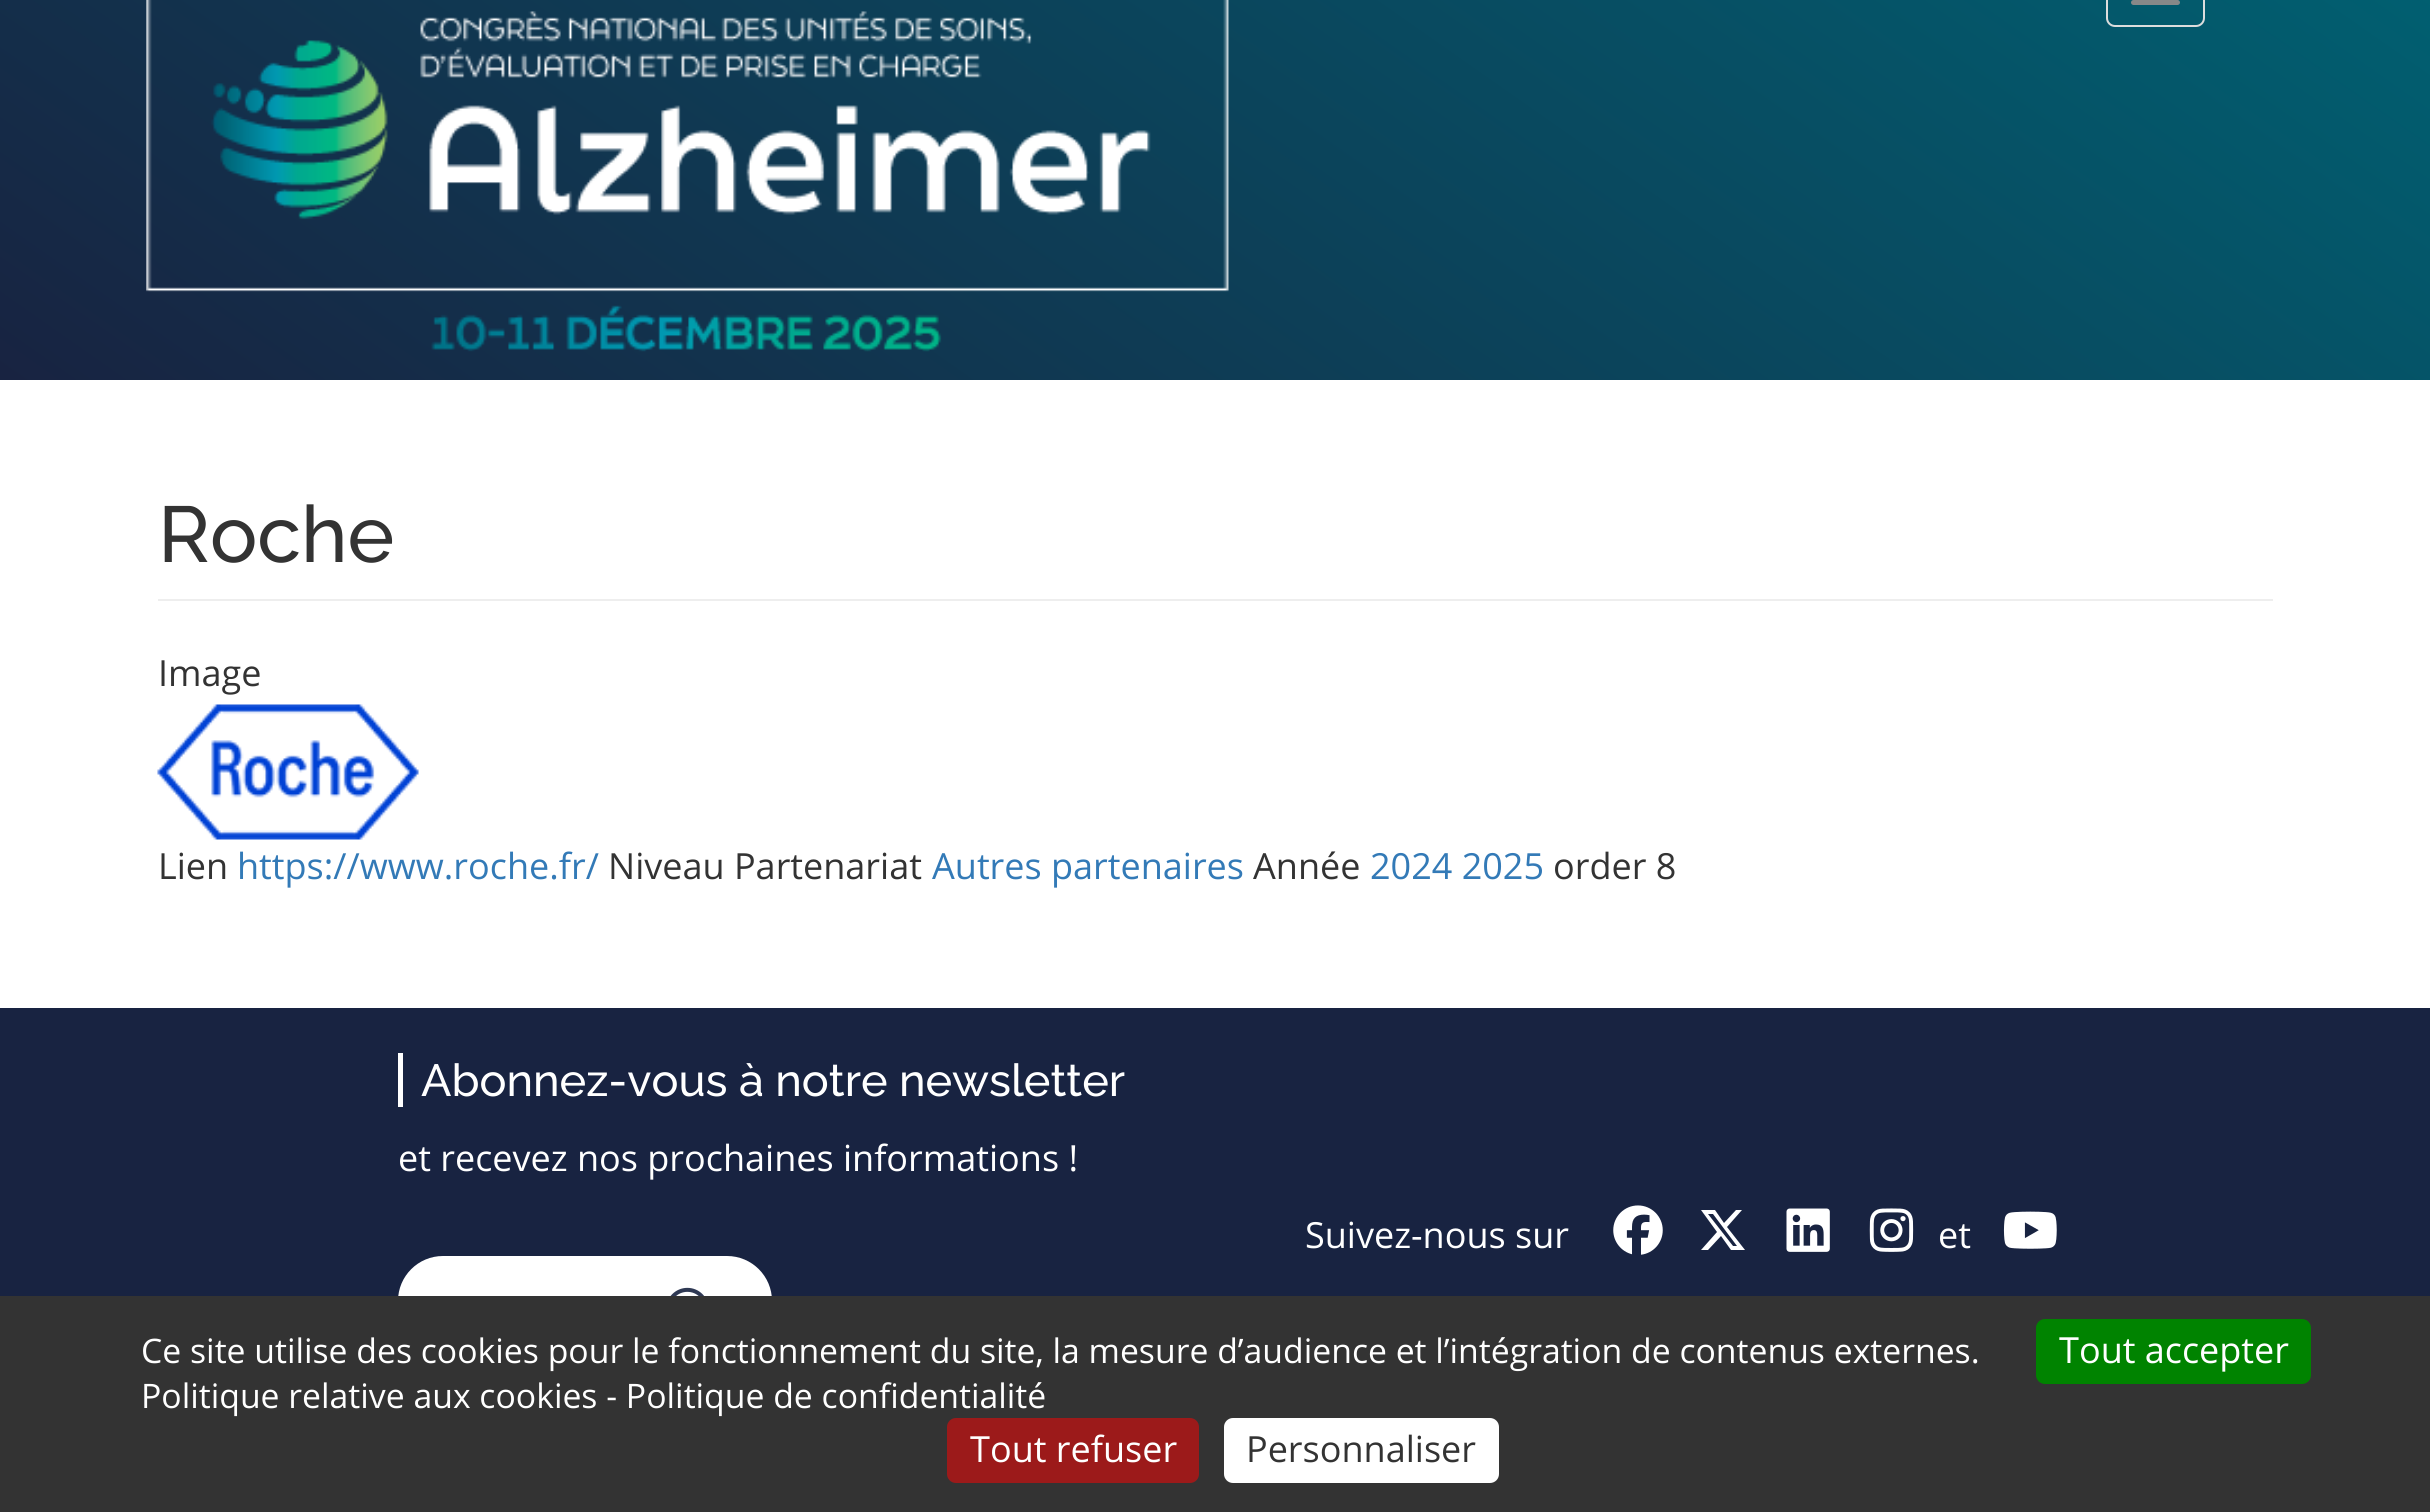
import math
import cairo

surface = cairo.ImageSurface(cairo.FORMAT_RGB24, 2430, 1512)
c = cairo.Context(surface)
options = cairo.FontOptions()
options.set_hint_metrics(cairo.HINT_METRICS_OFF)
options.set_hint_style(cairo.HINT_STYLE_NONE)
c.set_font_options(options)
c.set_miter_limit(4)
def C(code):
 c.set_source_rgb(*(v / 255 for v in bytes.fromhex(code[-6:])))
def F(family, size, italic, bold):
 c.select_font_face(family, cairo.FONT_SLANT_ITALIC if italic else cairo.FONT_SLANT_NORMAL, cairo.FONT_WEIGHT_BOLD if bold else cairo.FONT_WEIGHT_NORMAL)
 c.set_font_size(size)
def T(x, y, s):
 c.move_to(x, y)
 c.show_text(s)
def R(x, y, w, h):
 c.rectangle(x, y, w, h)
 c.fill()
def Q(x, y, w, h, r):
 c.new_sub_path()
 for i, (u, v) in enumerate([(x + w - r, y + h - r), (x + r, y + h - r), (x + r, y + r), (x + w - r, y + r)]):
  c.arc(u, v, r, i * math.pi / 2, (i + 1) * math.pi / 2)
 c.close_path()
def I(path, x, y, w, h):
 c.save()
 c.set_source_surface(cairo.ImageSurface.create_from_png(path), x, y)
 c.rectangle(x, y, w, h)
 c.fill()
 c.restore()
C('ffffff')
c.paint()
gradient = cairo.LinearGradient(707,876,1723,-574)
gradient.add_color_stop_rgba(0,0.094,0.137,0.255,1)
gradient.add_color_stop_rgba(1,0,0.38,0.447,1)
c.set_source(gradient)
R(0,0,2430,380)
I('1.png',146,0,1083,352)
Q(2107,-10,97,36,8)
C('dddddd')
c.stroke()
C('888888')
Q(2131,0,49,5,2.5)
c.fill()
C('eeeeee')
R(158,599,2115,2)
F('Raleway Medium',79,0,0)
C('333333')
T(158,562,'Roche')
F('Open Sans',36,0,0)
T(158,686,'Image')
I('2.png',157,704,262,136)
T(158,879,'Lien')
C('337ab7')
T(237,879,'https://www.roche.fr/')
C('333333')
T(608,879,'Niveau Partenariat')
C('337ab7')
T(932,879,'Autres partenaires')
C('333333')
T(1253,879,'Année')
C('337ab7')
T(1370,879,'2024 2025')
C('333333')
T(1553,879,'order 8')
C('182341')
R(0,1008,2430,288)
C('ffffff')
R(398,1053,5,54)
F('Raleway Medium',45,0,0)
T(421,1096,'Abonnez-vous à notre newsletter')
F('Open Sans',36,0,0)
T(398,1171,'et recevez nos prochaines informations !')
Q(398,1256,374,103,45)
c.fill()
I('3.png',670,1287,34,9)
T(1305,1248,'Suivez-nous sur')
I('4.png',1613,1205,50,50)
c.new_path()
c.move_to(1736,1210)
c.line_to(1742,1210)
c.line_to(1727,1227)
c.line_to(1745,1250)
c.line_to(1731,1250)
c.line_to(1721,1236)
c.line_to(1708,1250)
c.line_to(1701,1250)
c.line_to(1717,1232)
c.line_to(1701,1210)
c.line_to(1715,1210)
c.line_to(1724,1223)
c.close_path()
c.move_to(1733,1246)
c.line_to(1737,1246)
c.line_to(1713,1214)
c.line_to(1708,1214)
c.close_path()
c.fill()
I('5.png',1786,1208,44,44)
I('6.png',1869,1208,45,44)
T(1938,1248,'et')
I('7.png',2003,1211,54,38)
C('333333')
R(0,1296,2430,216)
F('Open Sans',33.75,0,0)
C('ffffff')
T(141,1363,'Ce site utilise des cookies pour le fonctionnement du site, la mesure d’audience et l’intégration de contenus externes.')
T(141,1408,'Politique relative aux cookies - Politique de confidentialité')
C('008300')
Q(2036,1319,275,65,9)
c.fill()
F('Open Sans',36,0,0)
C('ffffff')
T(2059,1363,'Tout accepter')
C('9c1a1a')
Q(947,1418,252,65,9)
c.fill()
C('ffffff')
T(970,1462,'Tout refuser')
Q(1224,1418,275,65,9)
c.fill()
C('333333')
T(1246,1462,'Personnaliser')
surface.write_to_png('o.png')
